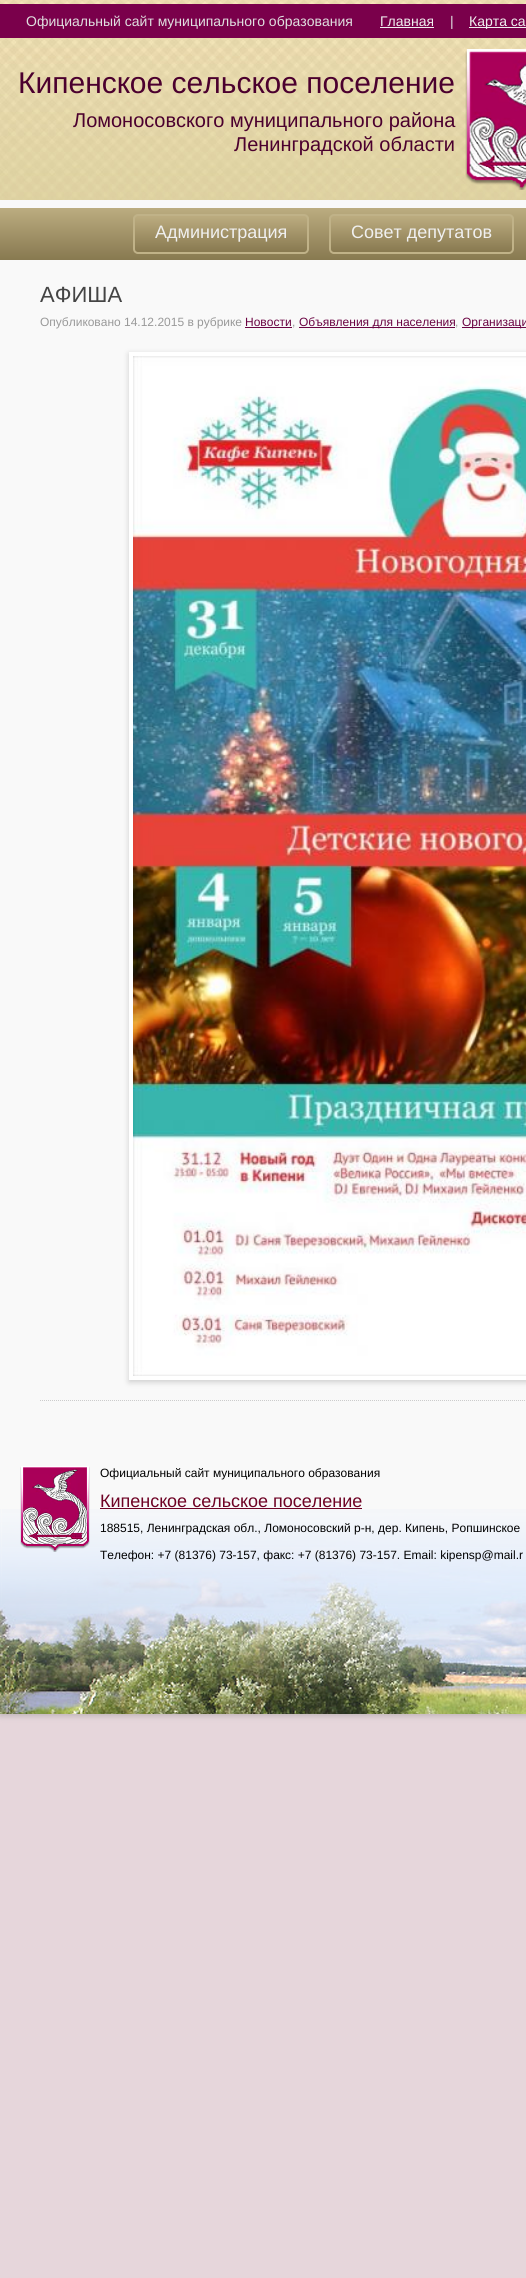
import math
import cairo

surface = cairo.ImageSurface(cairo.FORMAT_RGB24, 526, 2278)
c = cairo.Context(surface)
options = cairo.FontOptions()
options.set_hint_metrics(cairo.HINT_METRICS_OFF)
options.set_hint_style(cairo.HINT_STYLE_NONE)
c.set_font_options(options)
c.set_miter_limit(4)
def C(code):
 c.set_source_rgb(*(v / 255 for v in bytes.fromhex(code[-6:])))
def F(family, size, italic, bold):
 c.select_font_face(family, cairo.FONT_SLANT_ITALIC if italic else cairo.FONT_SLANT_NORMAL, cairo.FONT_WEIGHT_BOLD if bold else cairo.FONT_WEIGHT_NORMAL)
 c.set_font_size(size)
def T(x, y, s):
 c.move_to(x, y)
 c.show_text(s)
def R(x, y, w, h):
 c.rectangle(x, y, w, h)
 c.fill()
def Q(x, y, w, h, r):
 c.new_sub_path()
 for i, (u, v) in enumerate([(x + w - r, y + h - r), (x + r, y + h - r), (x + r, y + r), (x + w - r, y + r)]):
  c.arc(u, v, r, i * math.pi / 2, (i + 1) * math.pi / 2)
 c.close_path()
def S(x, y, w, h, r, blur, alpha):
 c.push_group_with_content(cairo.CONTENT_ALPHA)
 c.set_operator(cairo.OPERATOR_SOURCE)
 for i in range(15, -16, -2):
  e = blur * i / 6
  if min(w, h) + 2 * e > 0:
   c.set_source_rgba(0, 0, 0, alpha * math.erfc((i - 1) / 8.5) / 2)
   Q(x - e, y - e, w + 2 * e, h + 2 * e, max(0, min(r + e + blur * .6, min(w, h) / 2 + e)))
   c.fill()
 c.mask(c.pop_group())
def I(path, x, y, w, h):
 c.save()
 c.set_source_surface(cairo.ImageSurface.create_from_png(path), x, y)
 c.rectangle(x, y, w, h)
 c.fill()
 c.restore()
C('e6d6db')
c.paint()
C('646464')
S(0,2,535,1714,0,3,.3)
C('f9f9f9')
R(0,200,526,1492)
I('1.png',0,0,526,200)
C('7a004b')
R(0,4,526,34)
F('Liberation Sans',14,0,0)
C('e0e0e0')
T(26,26,'Официальный сайт муниципального образования')
C('f0f0f0')
T(380,26,'Главная')
R(380,27,54,1)
C('e0e0e0')
T(450,26,'|')
C('f0f0f0')
R(469,27,57,1)
T(469,26,'Карта са')
F('Liberation Sans',30,0,0)
C('4b002e')
T(18,93,'Кипенское сельское поселение')
F('Liberation Sans',20,0,0)
T(73,127,'Ломоносовского муниципального района')
T(234,151,'Ленинградской области')
I('2.png',465,49,61,141)
gradient = cairo.LinearGradient(480,260,480,208)
gradient.add_color_stop_rgba(0,0.533,0.475,0.314,1)
gradient.add_color_stop_rgba(1,0.737,0.675,0.502,1)
c.set_source(gradient)
R(0,208,526,52)
c.save()
Q(133,214,176,40,5)
c.clip()
gradient = cairo.LinearGradient(221,252,221,216)
gradient.add_color_stop_rgba(0,0.533,0.475,0.314,1)
gradient.add_color_stop_rgba(1,0.737,0.675,0.502,1)
c.set_source(gradient)
R(133,216,176,36)
c.restore()
Q(134,215,174,38,4)
C('c0b288')
c.stroke()
F('Liberation Sans',18,0,0)
C('f0f0f0')
T(155,238,'Администрация')
c.save()
Q(329,214,185,40,5)
c.clip()
gradient = cairo.LinearGradient(422,252,422,216)
gradient.add_color_stop_rgba(0,0.533,0.475,0.314,1)
gradient.add_color_stop_rgba(1,0.737,0.675,0.502,1)
c.set_source(gradient)
R(329,216,185,36)
c.restore()
Q(330,215,183,38,4)
C('c0b288')
c.stroke()
C('f0f0f0')
T(351,238,'Совет депутатов')
c.new_path()
c.move_to(40,1400.5)
c.line_to(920,1400.5)
C('cccccc')
c.set_line_width(1)
c.set_dash([1,1])
c.stroke()
F('Liberation Sans',22,0,0)
C('444444')
T(40,302,'АФИША')
F('Liberation Sans',12,0,0)
C('999999')
T(40,326,'Опубликовано 14.12.2015 в рубрике')
C('6b0443')
T(245,326,'Новости')
R(245,327,47,1)
C('999999')
T(292,326,',')
C('6b0443')
R(299,327,156,1)
T(299,326,'Объявления для населения')
C('999999')
T(455,326,',')
C('6b0443')
R(462,327,64,1)
T(462,326,'Организаци')
C('646464')
S(129,354,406,1028,0,3,.3)
c.rectangle(131,354,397,1024)
C('ffffff')
c.set_line_width(4)
c.set_dash([])
c.stroke()
I('3.png',133,356,393,1020)
I('4.png',0,1509,526,205)
I('5.png',20,1466,70,86)
C('000000')
T(100,1477,'Официальный сайт муниципального образования')
F('Liberation Sans',18,0,0)
C('6e0224')
T(100,1507,'Кипенское сельское поселение')
R(100,1508,262,1)
F('Liberation Sans',12,0,0)
C('000000')
T(100,1532,'188515, Ленинградская обл., Ломоносовский р-н, дер. Кипень, Ропшинское')
T(100,1559,'Телефон: +7 (81376) 73-157, факс: +7 (81376) 73-157. Email: kipensp@mail.r')
surface.write_to_png('o.png')
